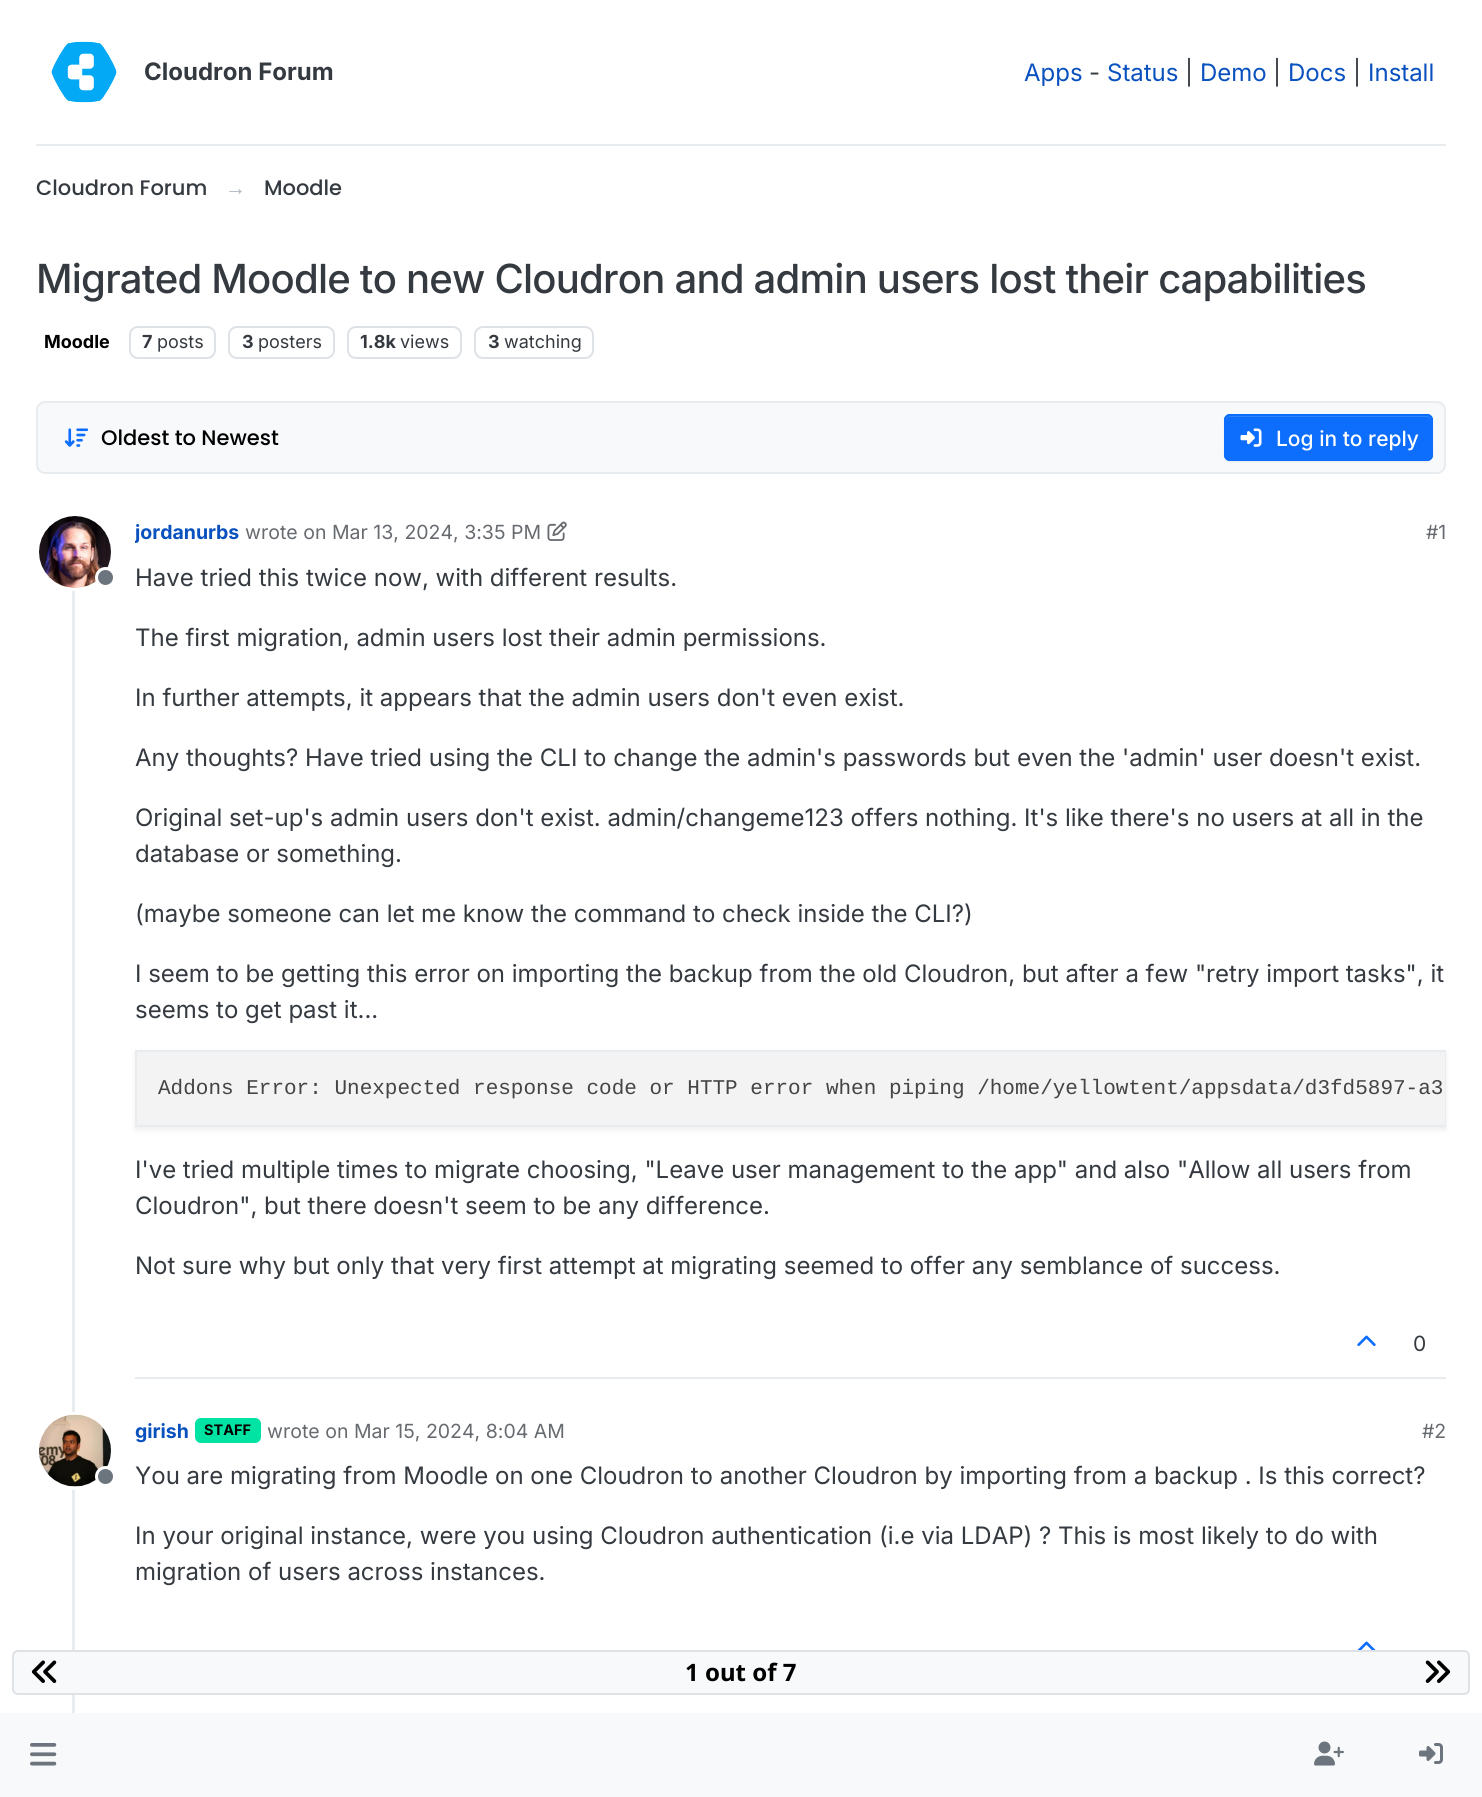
import math
import cairo

surface = cairo.ImageSurface(cairo.FORMAT_RGB24, 1482, 1797)
c = cairo.Context(surface)
options = cairo.FontOptions()
options.set_hint_metrics(cairo.HINT_METRICS_OFF)
options.set_hint_style(cairo.HINT_STYLE_NONE)
c.set_font_options(options)
c.set_miter_limit(4)
def C(code):
 c.set_source_rgb(*(v / 255 for v in bytes.fromhex(code[-6:])))
def F(family, size, italic, bold):
 c.select_font_face(family, cairo.FONT_SLANT_ITALIC if italic else cairo.FONT_SLANT_NORMAL, cairo.FONT_WEIGHT_BOLD if bold else cairo.FONT_WEIGHT_NORMAL)
 c.set_font_size(size)
def T(x, y, s):
 c.move_to(x, y)
 c.show_text(s)
def L(x, y, s, letter, word):
 c.move_to(x, y)
 for ch in s:
  c.show_text(ch)
  c.rel_move_to(letter + word * (ch == ' '), 0)
def R(x, y, w, h):
 c.rectangle(x, y, w, h)
 c.fill()
def Q(x, y, w, h, r):
 c.new_sub_path()
 for i, (u, v) in enumerate([(x + w - r, y + h - r), (x + r, y + h - r), (x + r, y + r), (x + w - r, y + r)]):
  c.arc(u, v, r, i * math.pi / 2, (i + 1) * math.pi / 2)
 c.close_path()
def S(x, y, w, h, r, blur, alpha):
 c.push_group_with_content(cairo.CONTENT_ALPHA)
 c.set_operator(cairo.OPERATOR_SOURCE)
 for i in range(15, -16, -2):
  e = blur * i / 6
  if min(w, h) + 2 * e > 0:
   c.set_source_rgba(0, 0, 0, alpha * math.erfc((i - 1) / 8.5) / 2)
   Q(x - e, y - e, w + 2 * e, h + 2 * e, max(0, min(r + e + blur * .6, min(w, h) / 2 + e)))
   c.fill()
 c.mask(c.pop_group())
def I(path, x, y, w, h):
 c.save()
 c.set_source_surface(cairo.ImageSurface.create_from_png(path), x, y)
 c.rectangle(x, y, w, h)
 c.fill()
 c.restore()
C('ffffff')
c.paint()
C('e9ecef')
R(36,144,1410,2)
I('1.png',51,41,66,62)
F('Inter',24,0,1)
C('343a40')
T(144,80,'Cloudron Forum')
F('Inter',24,0,0)
C('0951be')
T(1024,81,'Apps')
C('343a40')
T(1089,81,'-')
C('0951be')
T(1107,81,'Status')
C('343a40')
T(1185,81,'|')
C('0951be')
T(1200,81,'Demo')
C('343a40')
T(1273,81,'|')
C('0951be')
T(1288,81,'Docs')
C('343a40')
T(1353,81,'|')
C('0951be')
T(1368,81,'Install')
F('Poppins Medium',21,0,0)
C('343a40')
T(36,195,'Cloudron Forum')
F('Liberation Sans',21,0,0)
C('adb5bd')
T(225,195,'→')
F('Poppins Medium',21,0,0)
C('343a40')
T(264,195,'Moodle')
F('Inter Medium',40.1,0,0)
L(36,293,'Migrated Moodle to new Cloudron and admin users lost their capabilities',-.8,0)
F('Inter',18,0,1)
C('000000')
T(44,348,'Moodle')
Q(130,327,85,31,8)
C('dee2e6')
c.stroke()
C('343a40')
T(142,348,'7')
F('Inter',18,0,0)
T(157,348,'posts')
Q(229,327,105,31,8)
C('dee2e6')
c.stroke()
F('Inter',18,0,1)
C('343a40')
T(242,348,'3')
F('Inter',18,0,0)
T(258,348,'posters')
Q(348,327,113,31,8)
C('dee2e6')
c.stroke()
F('Inter',18,0,1)
C('343a40')
T(360,348,'1.8k')
F('Inter',18,0,0)
T(400,348,'views')
Q(475,327,118,31,8)
C('dee2e6')
c.stroke()
F('Inter',18,0,1)
C('343a40')
T(488,348,'3')
F('Inter',18,0,0)
T(504,348,'watching')
C('f8f9fa')
Q(37,402,1408,71,8)
c.fill_preserve()
C('e9ecef')
c.stroke()
I('2.png',64,428,25,19)
F('Poppins Medium',21,0,0)
C('000000')
T(101,445,'Oldest to Newest')
C('000000')
S(1224,416,209,46,6,1,.07)
C('0d6efd')
Q(1224,414,209,47,6)
c.fill()
C('3184fd')
c.new_path()
c.move_to(1230,417)
c.line_to(1426,417)
c.curve_to(1429,417,1431,419,1431,422)
c.line_to(1431,421)
c.curve_to(1431,418,1429,416,1426,416)
c.line_to(1231,416)
c.curve_to(1228,416,1226,418,1226,421)
c.line_to(1226,422)
c.curve_to(1226,419,1228,417,1230,417)
c.close_path()
c.fill()
Q(1225,415,207,45,5)
C('0d6efd')
c.stroke()
I('3.png',1240,428,22,19)
F('Inter Medium',21,0,0)
C('ffffff')
T(1276,446,'Log in to reply')
C('e9ecef')
R(72,516,3,1134)
c.new_path()
c.arc(75,552,37.5,0,2 * math.pi)
C('ffffff')
c.set_line_width(3)
c.stroke()
I('4.png',39,516,72,72)
C('6c757d')
c.arc(105.5,577.5,9,0,2 * math.pi)
c.fill_preserve()
C('ffffff')
c.stroke()
c.save()
c.rectangle(135,516,105,30)
c.clip()
F('Inter',19.5,0,1)
C('0951be')
T(135,539,'jordanurbs')
c.restore()
F('Inter',19.5,0,0)
C('676b70')
T(245,539,'wrote on Mar 13, 2024, 3:35 PM')
I('5.png',547,521,20,20)
T(1426,539,'#1')
F('Inter',24,0,0)
C('343a40')
T(135,586,'Have tried this twice now, with different results.')
T(135,646,'The first migration, admin users lost their admin permissions.')
T(135,706,'In further attempts, it appears that the admin users don\'t even exist.')
T(135,766,'Any thoughts? Have tried using the CLI to change the admin\'s passwords but even the \'admin\' user doesn\'t exist.')
T(135,826,'Original set-up\'s admin users don\'t exist. admin/changeme123 offers nothing. It\'s like there\'s no users at all in the')
T(135,862,'database or something.')
T(135,922,'(maybe someone can let me know the command to check inside the CLI?)')
T(135,982,'I seem to be getting this error on importing the backup from the old Cloudron, but after a few "retry import tasks", it')
T(135,1018,'seems to get past it...')
C('000000')
S(135,1053,1311,77,0,3,.07)
c.rectangle(136,1051,1309,75)
C('e9ecef')
c.set_line_width(2)
c.stroke()
C('f3f3f3')
R(137,1052,1308,73)
F('Liberation Mono',21,0,0)
C('444444')
T(158,1094,'Addons Error: Unexpected response code or HTTP error when piping /home/yellowtent/appsdata/d3fd5897-a3')
F('Inter',24,0,0)
C('343a40')
T(135,1178,'I\'ve tried multiple times to migrate choosing, "Leave user management to the app" and also "Allow all users from')
T(135,1214,'Cloudron", but there doesn\'t seem to be any difference.')
T(135,1274,'Not sure why but only that very first attempt at migrating seemed to offer any semblance of success.')
C('e9ecef')
R(135,1377,1311,2)
I('6.png',1357,1335,19,11)
F('Inter',21,0,0)
C('343a40')
T(1413,1351,'0')
C('ffffff')
c.new_path()
c.arc(75,1451,37.5,0,2 * math.pi)
c.fill_preserve()
c.set_line_width(3)
c.stroke()
I('7.png',39,1414,72,73)
C('6c757d')
c.arc(105.5,1476.5,9,0,2 * math.pi)
c.fill_preserve()
C('ffffff')
c.stroke()
F('Inter',19.5,0,1)
C('0951be')
T(135,1438,'girish')
C('00e3a3')
Q(195,1418,66,25,6)
c.fill()
F('Inter',14.5,0,1)
C('000000')
T(204,1435,'STAFF')
F('Inter',19.5,0,0)
C('676b70')
T(267,1438,'wrote on Mar 15, 2024, 8:04 AM')
T(1422,1438,'#2')
F('Inter',24,0,0)
C('343a40')
T(135,1484,'You are migrating from Moodle on one Cloudron to another Cloudron by importing from a backup . Is this correct?')
T(135,1544,'In your original instance, were you using Cloudron authentication (i.e via LDAP) ? This is most likely to do with')
T(135,1580,'migration of users across instances.')
I('8.png',1357,1641,19,9)
C('e9ecef')
R(72,1695,3,18)
C('f8f9fa')
Q(13,1651,1456,43,5)
c.fill_preserve()
C('dee2e6')
c.set_line_width(2)
c.stroke()
I('9.png',31,1660,26,23)
F('Noto Sans',24,0,1)
C('000000')
T(685,1681,'1 out of 7')
I('10.png',1425,1660,26,23)
C('f8f9fa')
R(0,1713,1482,84)
I('11.png',30,1743,27,23)
I('12.png',1314,1741,30,25)
I('13.png',1419,1743,24,21)
surface.write_to_png('o.png')
